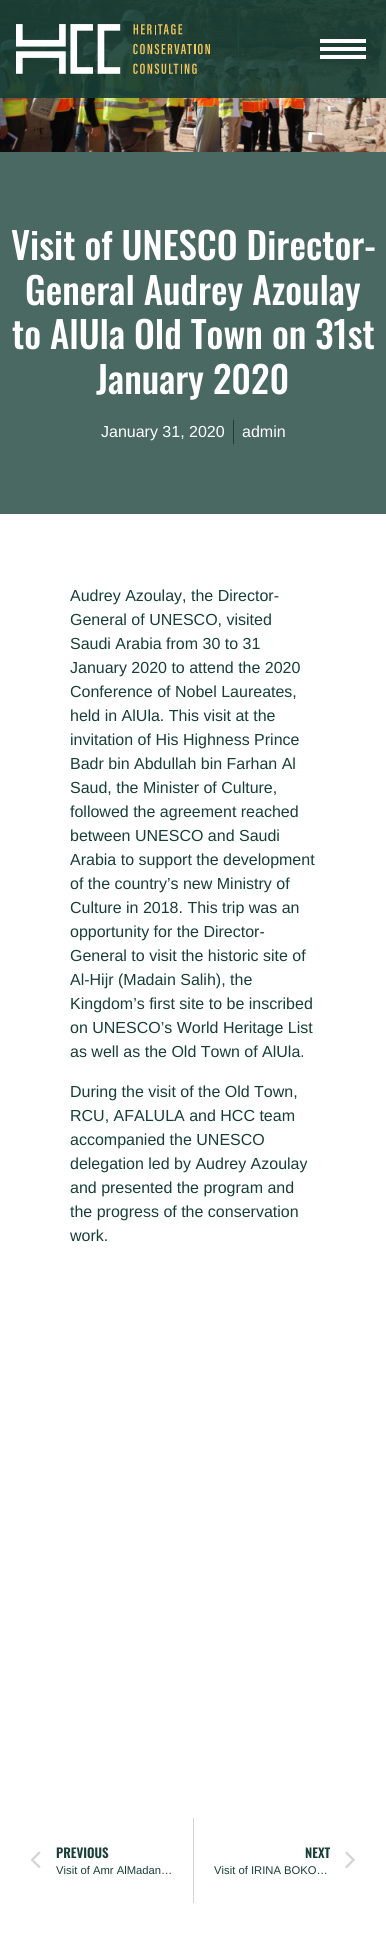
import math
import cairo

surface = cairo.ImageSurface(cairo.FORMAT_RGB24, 386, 1950)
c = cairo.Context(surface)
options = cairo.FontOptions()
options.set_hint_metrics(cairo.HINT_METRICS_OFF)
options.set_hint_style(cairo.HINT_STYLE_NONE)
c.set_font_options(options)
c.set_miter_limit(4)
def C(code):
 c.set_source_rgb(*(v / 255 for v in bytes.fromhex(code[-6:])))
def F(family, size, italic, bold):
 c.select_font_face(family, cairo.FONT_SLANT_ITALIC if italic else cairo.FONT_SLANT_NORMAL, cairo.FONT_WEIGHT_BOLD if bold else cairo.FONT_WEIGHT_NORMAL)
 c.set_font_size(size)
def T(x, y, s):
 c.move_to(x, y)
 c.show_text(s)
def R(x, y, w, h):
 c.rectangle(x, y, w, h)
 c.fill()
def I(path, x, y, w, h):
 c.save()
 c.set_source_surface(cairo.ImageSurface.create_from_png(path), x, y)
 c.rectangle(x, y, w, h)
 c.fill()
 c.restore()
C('ffffff')
c.paint()
I('2.png',0,0,386,152)
c.set_source_rgba(0.09,0.247,0.208,0.9)
R(0,0,386,98)
I('1.png',16,24,194,50)
C('ffffff')
R(320,39,46,4)
R(320,47,46,4)
R(320,55,46,4)
C('4a6962')
R(0,152,386,362)
F('Oswald Medium',37,0,0)
C('ffffff')
T(11,260,'Visit of UNESCO Director-')
T(25,305,'General Audrey Azoulay')
T(12,349,'to AlUla Old Town on 31st')
T(96,394,'January 2020')
F('Liberation Sans',16,0,0)
T(101,437,'January 31, 2020')
C('173f35')
R(233,420,1,24)
C('ffffff')
T(242,437,'admin')
C('173f35')
T(70,601,'Audrey Azoulay, the Director-')
T(70,625,'General of UNESCO, visited')
T(70,649,'Saudi Arabia from 30 to 31')
T(70,673,'January 2020 to attend the 2020')
T(70,697,'Conference of Nobel Laureates,')
T(70,721,'held in AlUla. This visit at the')
T(70,745,'invitation of His Highness Prince')
T(70,769,'Badr bin Abdullah bin Farhan Al')
T(70,793,'Saud, the Minister of Culture,')
T(70,817,'followed the agreement reached')
T(70,841,'between UNESCO and Saudi')
T(70,865,'Arabia to support the development')
T(70,889,'of the country’s new Ministry of')
T(70,913,'Culture in 2018. This trip was an')
T(70,937,'opportunity for the Director-')
T(70,961,'General to visit the historic site of')
T(70,985,'Al-Hijr (Madain Salih), the')
T(70,1009,'Kingdom’s first site to be inscribed')
T(70,1033,'on UNESCO’s World Heritage List')
T(70,1057,'as well as the Old Town of AlUla.')
T(70,1097,'During the visit of the Old Town,')
T(70,1121,'RCU, AFALULA and HCC team')
T(70,1145,'accompanied the UNESCO')
T(70,1169,'delegation led by Audrey Azoulay')
T(70,1193,'and presented the program and')
T(70,1217,'the progress of the conservation')
T(70,1241,'work.')
I('3.png',30,1851,11,17)
F('Oswald SemiBold',13,0,0)
T(56,1858,'PREVIOUS')
F('Liberation Sans',11.25,0,0)
T(56,1874,'Visit of Amr AlMadan…')
C('d4d4d4')
R(193,1818,1,85)
F('Oswald SemiBold',13,0,0)
C('173f35')
T(305,1858,'NEXT')
F('Liberation Sans',11.25,0,0)
T(214,1874,'Visit of IRINA BOKO…')
I('4.png',345,1851,10,18)
surface.write_to_png('o.png')
